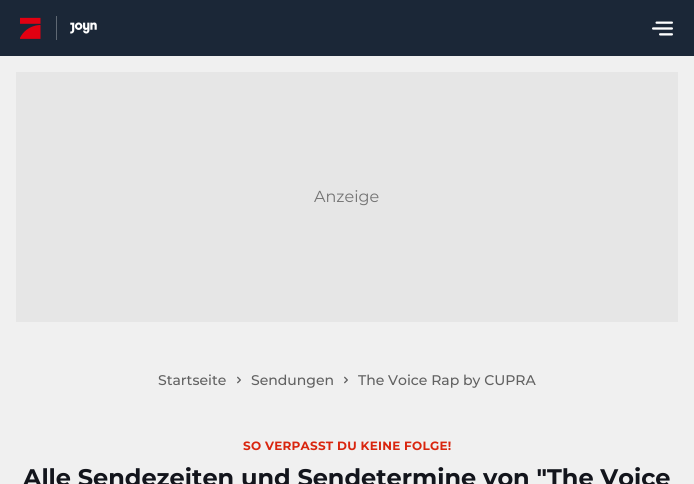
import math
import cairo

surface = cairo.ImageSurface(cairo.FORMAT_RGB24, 694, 484)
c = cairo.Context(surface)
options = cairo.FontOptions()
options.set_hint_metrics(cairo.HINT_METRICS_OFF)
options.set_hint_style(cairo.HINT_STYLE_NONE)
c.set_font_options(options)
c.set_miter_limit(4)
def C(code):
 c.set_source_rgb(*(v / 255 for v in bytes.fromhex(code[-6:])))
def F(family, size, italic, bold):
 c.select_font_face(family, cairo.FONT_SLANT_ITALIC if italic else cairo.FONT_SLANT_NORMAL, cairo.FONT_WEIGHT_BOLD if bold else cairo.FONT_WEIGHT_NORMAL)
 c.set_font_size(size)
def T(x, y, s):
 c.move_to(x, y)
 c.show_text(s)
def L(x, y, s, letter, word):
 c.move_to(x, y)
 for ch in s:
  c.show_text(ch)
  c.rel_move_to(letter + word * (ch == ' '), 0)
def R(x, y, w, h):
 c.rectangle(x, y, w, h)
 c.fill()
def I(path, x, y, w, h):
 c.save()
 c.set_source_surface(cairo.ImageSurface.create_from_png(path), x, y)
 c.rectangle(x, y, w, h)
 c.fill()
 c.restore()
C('f0f0f0')
c.paint()
C('1b2737')
R(0,0,694,56)
I('1.png',20,17,21,22)
C('5f6873')
R(56,16,1,24)
I('2.png',70,22,27,12)
I('3.png',652,21,21,15)
C('e6e6e6')
R(16,72,662,250)
F('Montserrat',16,0,0)
C('737373')
T(314,202,'Anzeige')
F('Montserrat Medium',14,0,0)
C('616161')
T(158,385,'Startseite')
I('4.png',237,376,4,8)
T(251,385,'Sendungen')
I('4.png',344,376,4,8)
T(358,385,'The Voice Rap by CUPRA')
F('Montserrat',12,0,1)
C('d9250e')
L(243,450,'SO VERPASST DU KEINE FOLGE!',.25,0)
F('Montserrat',24,0,1)
C('13151c')
T(23,486,'Alle Sendezeiten und Sendetermine von "The Voice')
surface.write_to_png('o.png')
